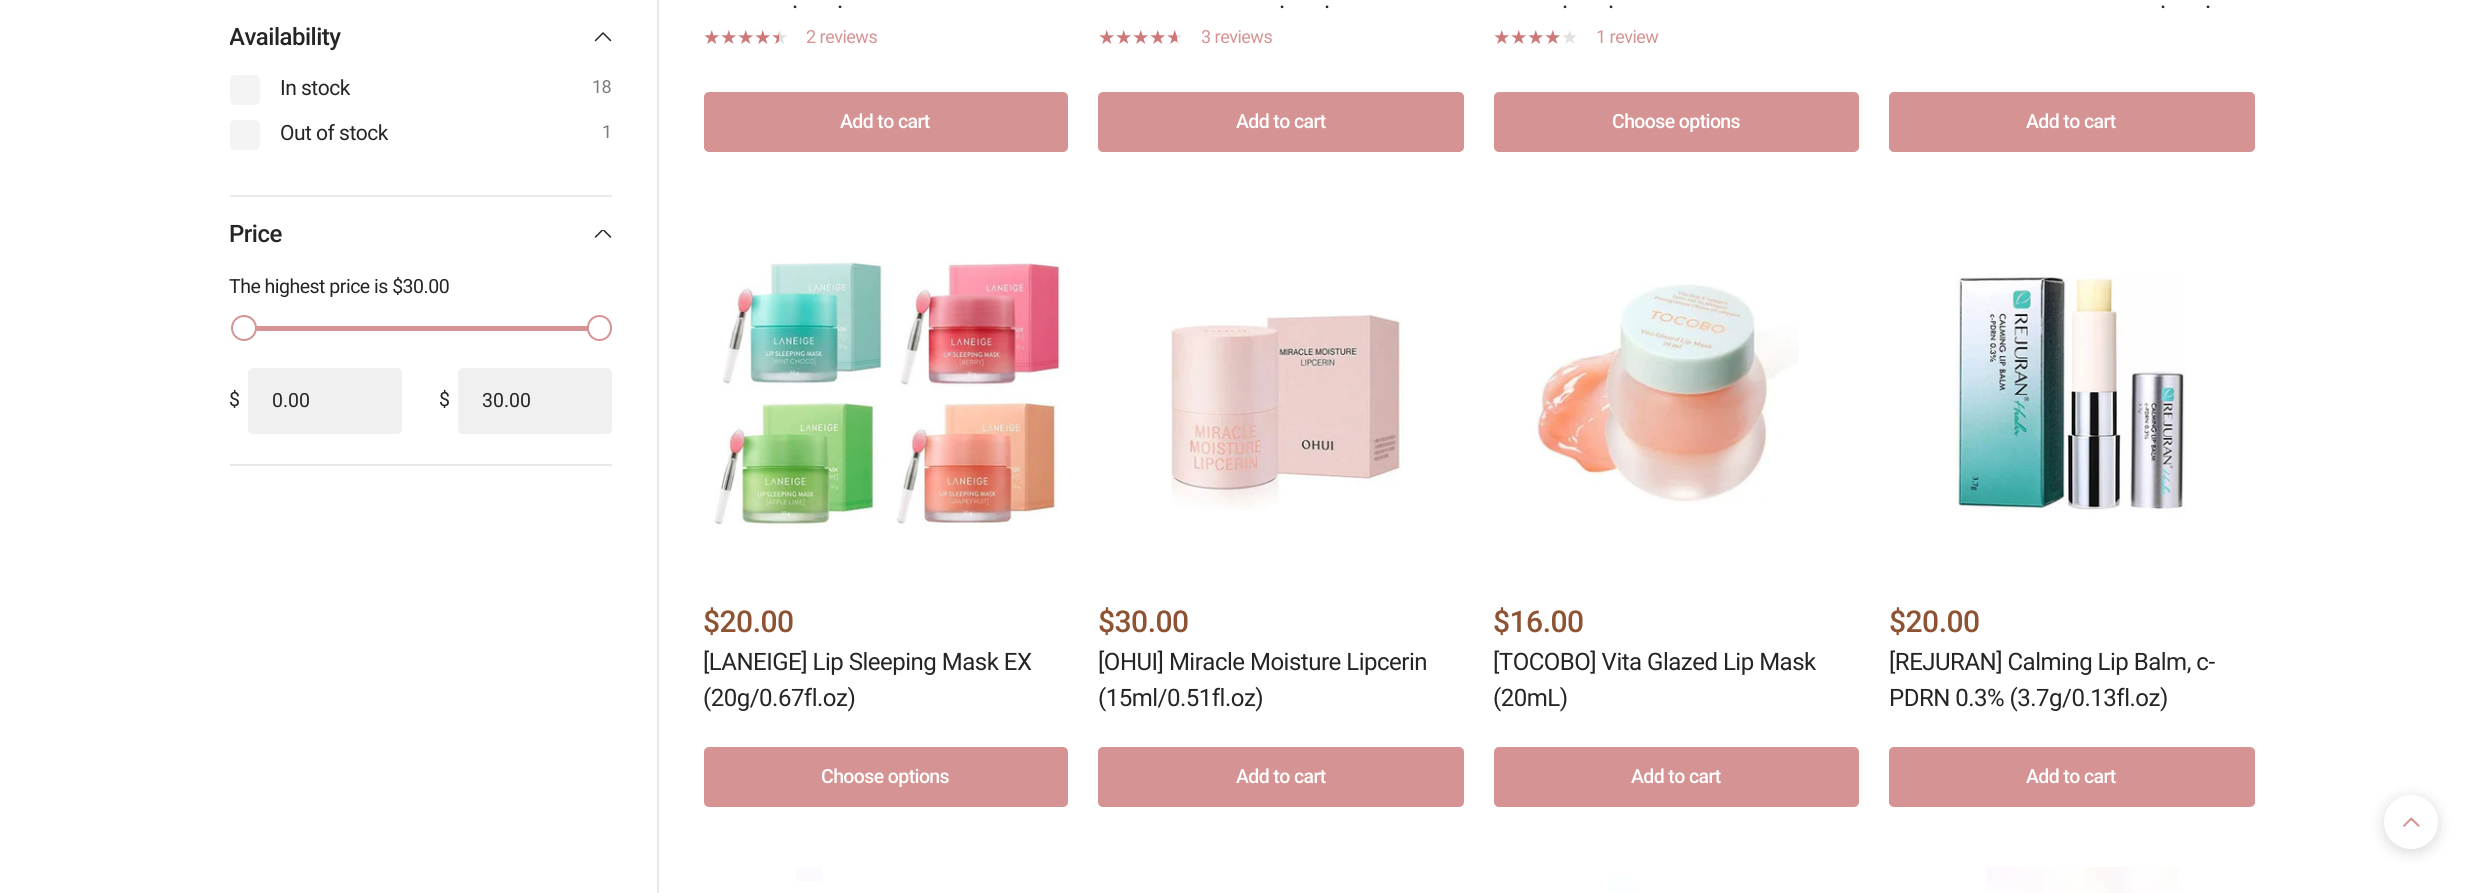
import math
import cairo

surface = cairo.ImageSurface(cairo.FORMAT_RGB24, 2482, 893)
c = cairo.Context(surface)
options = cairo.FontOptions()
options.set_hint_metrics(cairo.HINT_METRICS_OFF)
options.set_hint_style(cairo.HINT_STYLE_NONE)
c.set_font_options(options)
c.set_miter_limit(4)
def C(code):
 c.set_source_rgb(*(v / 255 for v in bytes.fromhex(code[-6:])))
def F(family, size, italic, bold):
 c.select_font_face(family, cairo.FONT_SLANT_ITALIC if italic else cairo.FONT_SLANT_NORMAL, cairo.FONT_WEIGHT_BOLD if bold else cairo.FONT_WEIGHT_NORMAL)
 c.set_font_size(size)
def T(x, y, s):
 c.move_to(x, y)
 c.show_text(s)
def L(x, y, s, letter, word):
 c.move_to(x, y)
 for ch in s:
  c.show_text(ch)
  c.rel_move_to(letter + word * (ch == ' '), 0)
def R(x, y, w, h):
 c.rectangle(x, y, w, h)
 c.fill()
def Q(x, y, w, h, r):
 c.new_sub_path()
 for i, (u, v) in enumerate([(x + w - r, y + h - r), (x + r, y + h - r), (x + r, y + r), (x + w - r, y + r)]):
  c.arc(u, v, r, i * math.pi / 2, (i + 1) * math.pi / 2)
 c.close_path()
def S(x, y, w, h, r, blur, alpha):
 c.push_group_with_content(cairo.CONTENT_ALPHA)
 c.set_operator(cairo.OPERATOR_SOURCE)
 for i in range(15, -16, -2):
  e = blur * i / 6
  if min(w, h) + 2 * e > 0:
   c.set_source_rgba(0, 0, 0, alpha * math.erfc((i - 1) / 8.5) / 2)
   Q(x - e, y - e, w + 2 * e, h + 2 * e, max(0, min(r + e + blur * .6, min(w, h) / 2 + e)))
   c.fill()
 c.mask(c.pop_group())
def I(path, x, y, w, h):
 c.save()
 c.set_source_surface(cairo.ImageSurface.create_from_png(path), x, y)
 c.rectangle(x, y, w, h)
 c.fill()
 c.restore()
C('ffffff')
c.paint()
C('e9e9e9')
R(230,195,382,2)
c.save()
c.rectangle(230,0,382,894)
c.clip()
F('Roboto Medium',24,0,0)
C('252525')
L(229,45,'Availability',-.5,0)
c.restore()
c.new_path()
c.move_to(610.5,40.5)
c.line_to(603,33)
c.line_to(595.5,40.5)
C('252525')
c.set_line_width(1.5)
c.set_line_cap(cairo.LINE_CAP_ROUND)
c.set_line_join(cairo.LINE_JOIN_ROUND)
c.stroke()
C('f4f4f4')
Q(230,75,30,30,5)
c.fill()
F('Roboto',21,0,0)
C('252525')
L(280,95,'In stock',-.5,0)
F('Roboto',18,0,0)
C('7c7c7c')
L(592,93,'18',-.5,0)
C('f4f4f4')
Q(230,120,30,30,5)
c.fill()
F('Roboto',21,0,0)
C('252525')
L(280,140,'Out of stock',-.5,0)
F('Roboto',18,0,0)
C('7c7c7c')
L(602,138,'1',-.5,0)
C('e9e9e9')
R(230,464,382,2)
F('Roboto Medium',24,0,0)
C('252525')
L(229,242,'Price',-.5,0)
c.save()
c.rectangle(594,230,18,10)
c.clip()
c.new_path()
c.move_to(610.5,237)
c.line_to(603,229.5)
c.line_to(595.5,237)
c.stroke()
c.restore()
F('Roboto',19.5,0,0)
L(229,293,'The highest price is $30.00',-.5,0)
C('d69393')
R(256,326,332,5)
C('ffffff')
c.new_path()
c.arc(244,328,12,0,2 * math.pi)
c.fill_preserve()
C('d69393')
c.set_line_width(2)
c.set_line_cap(cairo.LINE_CAP_BUTT)
c.set_line_join(cairo.LINE_JOIN_MITER)
c.stroke()
C('ffffff')
Q(588,316,23,24,11.5)
c.fill_preserve()
C('d69393')
c.stroke()
C('252525')
L(229,406,'$',-.5,0)
C('f0f0f0')
Q(248,368,154,66,5)
c.fill()
C('252525')
T(272,407,'0.00')
L(439,406,'$',-.5,0)
C('f0f0f0')
Q(458,368,154,66,5)
c.fill()
C('252525')
T(482,407,'30.00')
C('e9e9e9')
R(657,0,2,893)
F('Roboto',24,0,0)
C('252525')
L(792,8,'.',-.5,0)
L(837,8,'.',-.5,0)
F('DejaVu Sans',19.5,0,0)
gradient = cairo.LinearGradient(703,37,788,37)
gradient.add_color_stop_rgba(.9,0.808,0.475,0.475,1)
gradient.add_color_stop_rgba(.9,0.882,0.882,0.882,1)
c.set_source(gradient)
L(703,44,'★★★★★',-.5,0)
F('Roboto',18,0,0)
C('d69393')
L(806,43,'2 reviews',-.5,0)
Q(704,92,364,60,5)
c.fill()
F('Roboto Medium',19.5,0,0)
C('ffffff')
L(840,128,'Add to cart',-.6,0)
F('Roboto',24,0,0)
C('252525')
L(1279,8,'.',-.5,0)
L(1324,8,'.',-.5,0)
F('DejaVu Sans',19.5,0,0)
gradient = cairo.LinearGradient(1098,37,1183,37)
gradient.add_color_stop_rgba(.93,0.808,0.475,0.475,1)
gradient.add_color_stop_rgba(.93,0.882,0.882,0.882,1)
c.set_source(gradient)
L(1098,44,'★★★★★',-.5,0)
F('Roboto',18,0,0)
C('d69393')
L(1201,43,'3 reviews',-.5,0)
Q(1098,92,366,60,5)
c.fill()
F('Roboto Medium',19.5,0,0)
C('ffffff')
L(1236,128,'Add to cart',-.6,0)
F('Roboto',24,0,0)
C('252525')
L(1562,8,'.',-.5,0)
L(1608,8,'.',-.5,0)
F('DejaVu Sans',19.5,0,0)
gradient = cairo.LinearGradient(1493,37,1578,37)
gradient.add_color_stop_rgba(.8,0.808,0.475,0.475,1)
gradient.add_color_stop_rgba(.8,0.882,0.882,0.882,1)
c.set_source(gradient)
L(1493,44,'★★★★★',-.5,0)
F('Roboto',18,0,0)
C('d69393')
L(1596,43,'1 review',-.5,0)
Q(1494,92,365,60,5)
c.fill()
F('Roboto Medium',19.5,0,0)
C('ffffff')
L(1612,128,'Choose options',-.6,0)
F('Roboto',24,0,0)
C('252525')
L(2160,8,'.',-.5,0)
L(2205,8,'.',-.5,0)
C('d69393')
Q(1889,92,366,60,5)
c.fill()
F('Roboto Medium',19.5,0,0)
C('ffffff')
L(2026,128,'Add to cart',-.6,0)
I('1.png',714,262,348,266)
F('Roboto Medium',30,0,0)
C('8d5333')
L(703,632,'$20.00',-.5,0)
F('Roboto',24,0,0)
C('252525')
L(703,670,'[LANEIGE] Lip Sleeping Mask EX',-.5,0)
L(703,706,'(20g/0.67fl.oz)',-.5,0)
C('d69393')
Q(704,747,364,60,5)
c.fill()
F('Roboto Medium',19.5,0,0)
C('ffffff')
L(821,783,'Choose options',-.6,0)
I('2.png',1170,313,233,197)
F('Roboto Medium',30,0,0)
C('8d5333')
L(1098,632,'$30.00',-.5,0)
F('Roboto',24,0,0)
C('252525')
L(1098,670,'[OHUI] Miracle Moisture Lipcerin',-.5,0)
L(1098,706,'(15ml/0.51fl.oz)',-.5,0)
C('d69393')
Q(1098,747,366,60,5)
c.fill()
F('Roboto Medium',19.5,0,0)
C('ffffff')
L(1236,783,'Add to cart',-.6,0)
I('3.png',1533,284,266,220)
F('Roboto Medium',30,0,0)
C('8d5333')
L(1493,632,'$16.00',-.5,0)
F('Roboto',24,0,0)
C('252525')
L(1493,670,'[TOCOBO] Vita Glazed Lip Mask',-.5,0)
L(1493,706,'(20mL)',-.5,0)
C('d69393')
Q(1494,747,365,60,5)
c.fill()
F('Roboto Medium',19.5,0,0)
C('ffffff')
L(1631,783,'Add to cart',-.6,0)
I('4.png',1955,274,230,239)
F('Roboto Medium',30,0,0)
C('8d5333')
L(1889,632,'$20.00',-.5,0)
F('Roboto',24,0,0)
C('252525')
L(1889,670,'[REJURAN] Calming Lip Balm, c-',-.5,0)
L(1889,706,'PDRN 0.3% (3.7g/0.13fl.oz)',-.5,0)
C('d69393')
Q(1889,747,366,60,5)
c.fill()
F('Roboto Medium',19.5,0,0)
C('ffffff')
L(2026,783,'Add to cart',-.6,0)
C('fcfaff')
R(796,867,26,14)
C('fbffff')
R(1607,877,28,16)
I('5.png',1986,867,193,26)
C('000000')
S(2384,798,54,54,27,7.5,.15)
C('ffffff')
c.arc(2411,822,27,0,2 * math.pi)
c.fill()
I('6.png',2403,817,17,10)
surface.write_to_png('o.png')
